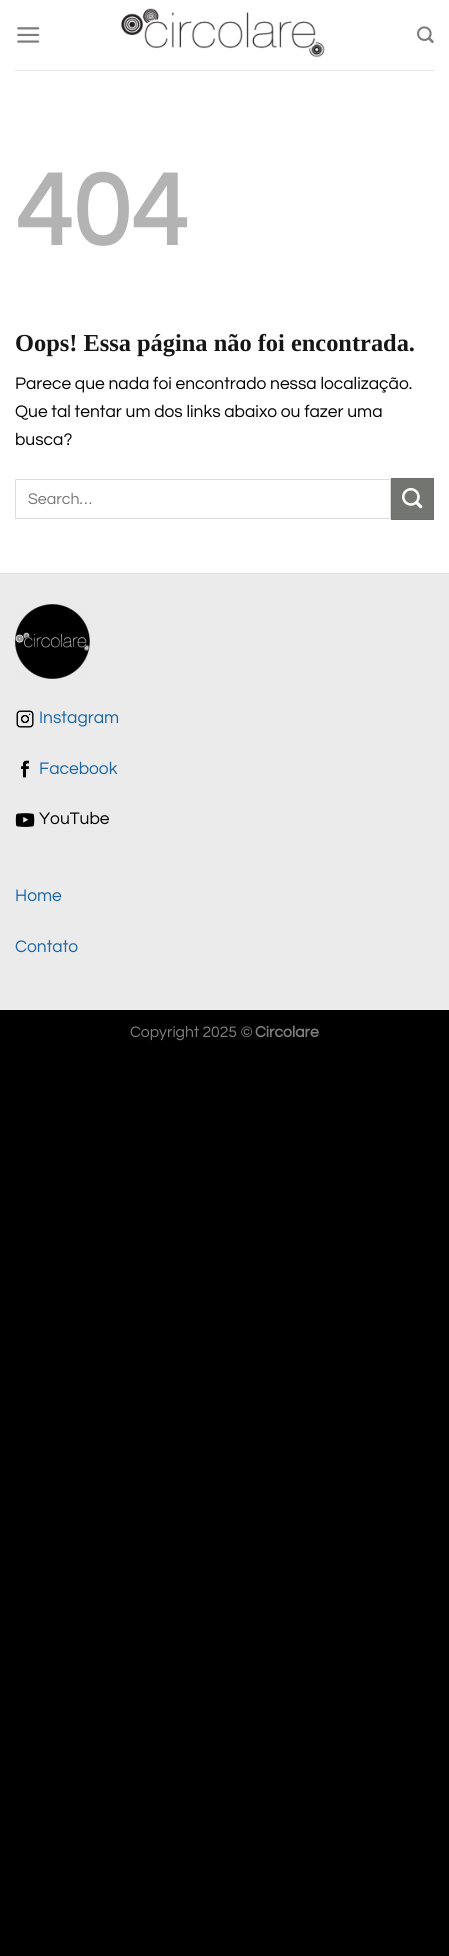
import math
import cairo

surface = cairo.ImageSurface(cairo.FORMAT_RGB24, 449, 1956)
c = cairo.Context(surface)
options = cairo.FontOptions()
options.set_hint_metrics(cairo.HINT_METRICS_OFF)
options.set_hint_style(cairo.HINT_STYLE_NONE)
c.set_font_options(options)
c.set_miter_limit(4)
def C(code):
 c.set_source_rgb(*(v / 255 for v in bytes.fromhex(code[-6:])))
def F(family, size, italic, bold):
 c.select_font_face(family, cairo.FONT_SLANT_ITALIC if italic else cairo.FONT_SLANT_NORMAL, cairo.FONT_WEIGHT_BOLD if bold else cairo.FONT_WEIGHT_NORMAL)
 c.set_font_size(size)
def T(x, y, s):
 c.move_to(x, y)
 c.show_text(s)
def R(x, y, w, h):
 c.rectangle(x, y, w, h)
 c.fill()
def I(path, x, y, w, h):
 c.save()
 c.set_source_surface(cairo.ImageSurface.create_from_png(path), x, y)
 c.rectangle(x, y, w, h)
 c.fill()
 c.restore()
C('000000')
c.paint()
C('ffffff')
R(0,0,449,573)
I('1.png',17,27,23,16)
I('2.png',121,8,204,50)
I('3.png',417,26,17,17)
C('e6e6e6')
R(15,70,419,1)
F('Questrial',105,0,1)
C('b3b3b3')
T(15,245,'404')
F('Liberation Serif',24.4,0,1)
C('171616')
T(15,351,'Oops! Essa página não foi encontrada.')
F('Questrial',17.4,0,0)
C('000000')
T(15,389,'Parece que nada foi encontrado nessa localização.')
T(15,417,'Que tal tentar um dos links abaixo ou fazer uma')
T(15,445,'busca?')
c.rectangle(15.5,479.5,375,39)
C('dddddd')
c.set_line_width(1)
c.stroke()
F('Questrial',16,0,0)
C('757575')
T(28,504,'Search…')
C('737570')
c.rectangle(391.5,478.5,42,41)
c.fill_preserve()
C('6d6f6a')
c.stroke()
I('4.png',402,488,21,21)
C('ebebeb')
R(0,574,449,436)
C('dfdfdf')
R(0,573,449,1)
I('5.png',15,604,75,75)
I('6.png',16,710,18,18)
F('Questrial',17.4,0,0)
C('1a65a7')
T(39,723,'Instagram')
I('7.png',21,760,8,18)
T(39,774,'Facebook')
I('8.png',15,813,20,14)
C('000000')
T(39,824,'YouTube')
C('1a65a7')
T(15,901,'Home')
T(15,952,'Contato')
F('Questrial',15.75,0,0)
C('808080')
T(130,1037,'Copyright 2025 ©')
F('Questrial',15.75,0,1)
T(255,1037,'Circolare')
surface.write_to_png('o.png')
